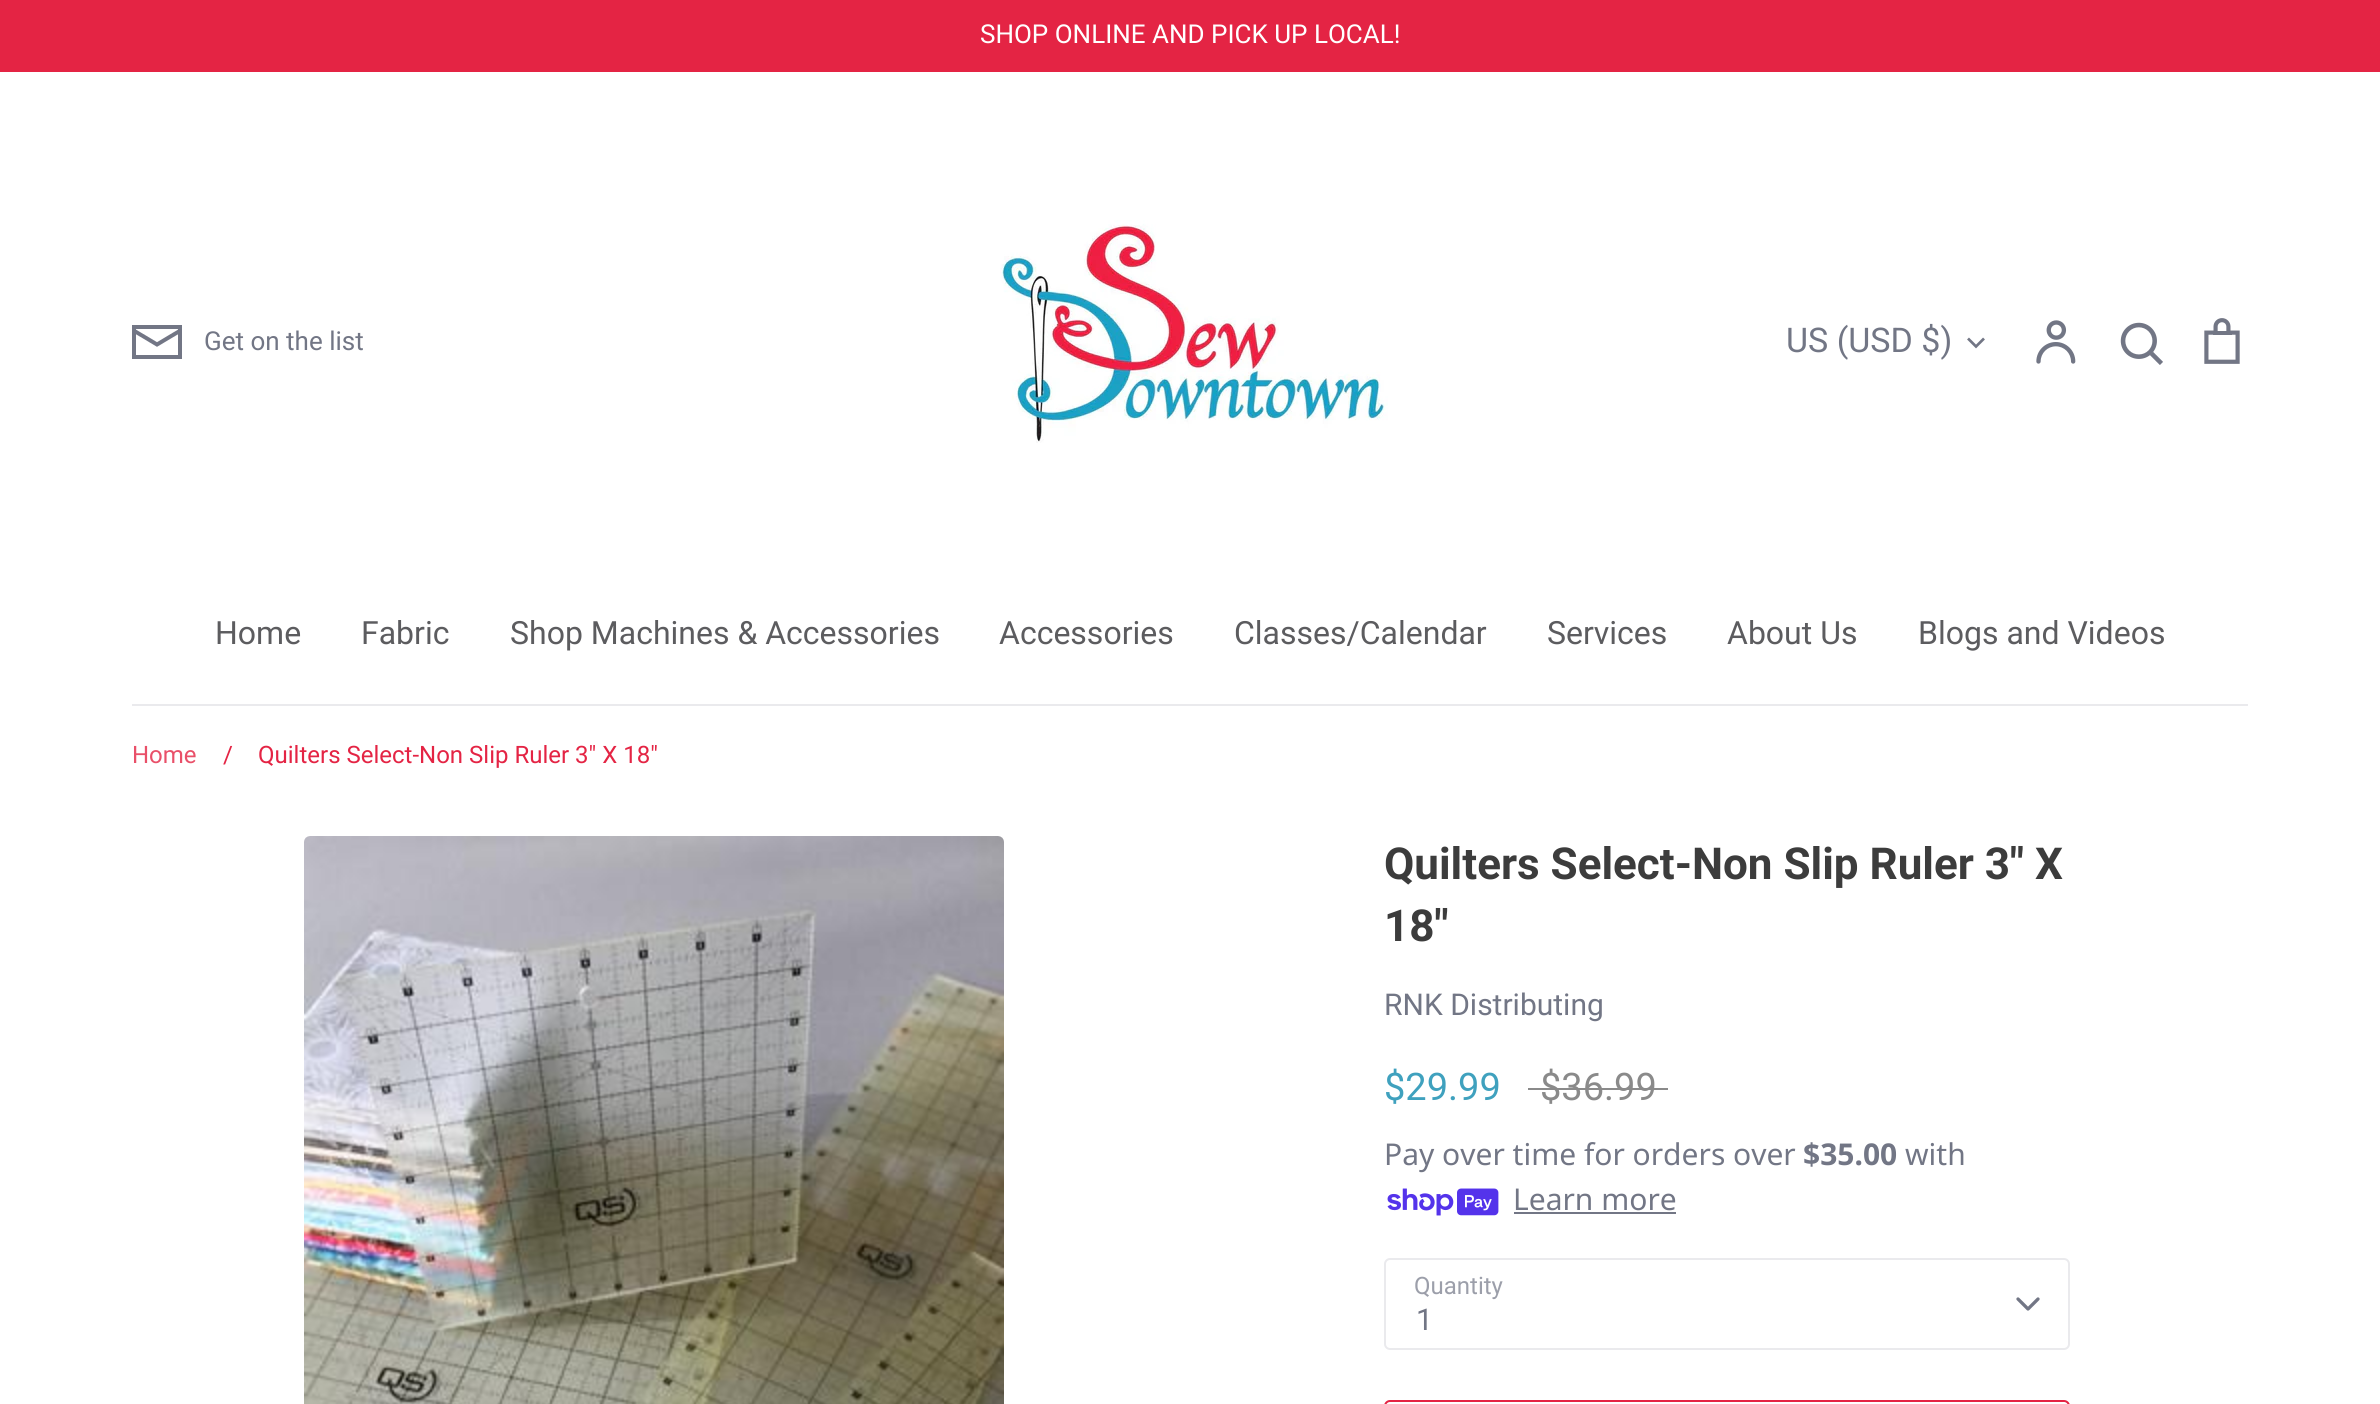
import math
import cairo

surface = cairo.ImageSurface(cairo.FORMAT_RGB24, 2380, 1404)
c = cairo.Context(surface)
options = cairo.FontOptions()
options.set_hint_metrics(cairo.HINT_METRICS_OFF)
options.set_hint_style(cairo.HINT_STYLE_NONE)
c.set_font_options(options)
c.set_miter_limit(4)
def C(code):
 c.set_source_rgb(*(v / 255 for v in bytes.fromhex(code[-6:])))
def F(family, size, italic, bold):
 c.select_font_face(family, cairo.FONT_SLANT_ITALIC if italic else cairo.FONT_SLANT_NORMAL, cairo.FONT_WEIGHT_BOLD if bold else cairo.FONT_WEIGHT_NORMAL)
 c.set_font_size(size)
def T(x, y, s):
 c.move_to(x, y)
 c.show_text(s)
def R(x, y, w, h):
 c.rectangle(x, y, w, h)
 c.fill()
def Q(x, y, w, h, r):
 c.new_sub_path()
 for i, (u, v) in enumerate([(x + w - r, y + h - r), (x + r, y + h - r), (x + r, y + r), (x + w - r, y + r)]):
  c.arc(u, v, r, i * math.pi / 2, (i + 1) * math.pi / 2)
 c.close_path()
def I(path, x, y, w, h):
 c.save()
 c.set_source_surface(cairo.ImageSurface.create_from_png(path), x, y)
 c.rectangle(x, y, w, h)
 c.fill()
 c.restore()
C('ffffff')
c.paint()
C('e42444')
R(0,0,2380,72)
F('Roboto',26,0,0)
C('ffffff')
T(980,43,'SHOP ONLINE AND PICK UP LOCAL!')
I('1.png',132,325,50,34)
C('727685')
T(204,350,'Get on the list')
I('2.png',1000,220,388,223)
F('Roboto',34,0,0)
T(1786,352,'US (USD $)')
c.new_path()
c.move_to(1968,338.5)
c.line_to(1976,346.5)
c.line_to(1984,338.5)
c.set_line_width(2.7)
c.stroke()
I('3.png',2036,320,40,44)
I('4.png',2120,322,43,43)
I('5.png',2204,318,36,46)
C('eaeaed')
R(132,704,2116,2)
F('Roboto',32,0,0)
C('5c5c5f')
T(215,644,'Home')
T(361,644,'Fabric')
T(510,644,'Shop Machines & Accessories')
T(999,644,'Accessories')
T(1234,644,'Classes/Calendar')
T(1547,644,'Services')
T(1727,644,'About Us')
T(1918,644,'Blogs and Videos')
F('Roboto',24,0,0)
C('e95069')
T(132,763,'Home')
C('e42444')
T(223,763,'/')
T(258,763,'Quilters Select-Non Slip Ruler 3" X 18"')
I('6.png',304,836,700,568)
F('Roboto',44,0,1)
C('3c3c3c')
T(1384,879,'Quilters Select-Non Slip Ruler 3" X')
T(1384,941,'18"')
F('Roboto',30,0,0)
C('727685')
T(1384,1015,'RNK Distributing')
F('Roboto',38,0,0)
C('3fa1be')
T(1384,1100,'$29.99')
C('8a8a8a')
T(1540,1100,'$36.99')
R(1528,1088,140,2)
F('Noto Sans',30,0,0)
C('727685')
T(1384,1165,'Pay over time for orders over')
F('Noto Sans',30,0,1)
T(1803,1165,'$35.00')
F('Noto Sans',30,0,0)
T(1905,1165,'with')
I('7.png',1387,1188,112,28)
T(1513,1210,'Learn more')
R(1514,1212,162,2)
F('Roboto',24,0,0)
C('9c9faa')
T(1414,1294,'Quantity')
Q(1385,1259,684,90,5)
C('eaeaed')
c.set_line_width(2)
c.stroke()
c.new_path()
c.move_to(2018,1299)
c.line_to(2028,1309)
c.line_to(2038,1299)
C('727685')
c.set_line_width(3.3)
c.set_line_cap(cairo.LINE_CAP_ROUND)
c.set_line_join(cairo.LINE_JOIN_ROUND)
c.stroke()
F('Roboto',30,0,0)
T(1416,1330,'1')
Q(1385,1401,684,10,5)
C('e42444')
c.set_line_width(2)
c.set_line_cap(cairo.LINE_CAP_BUTT)
c.set_line_join(cairo.LINE_JOIN_MITER)
c.stroke()
surface.write_to_png('o.png')
